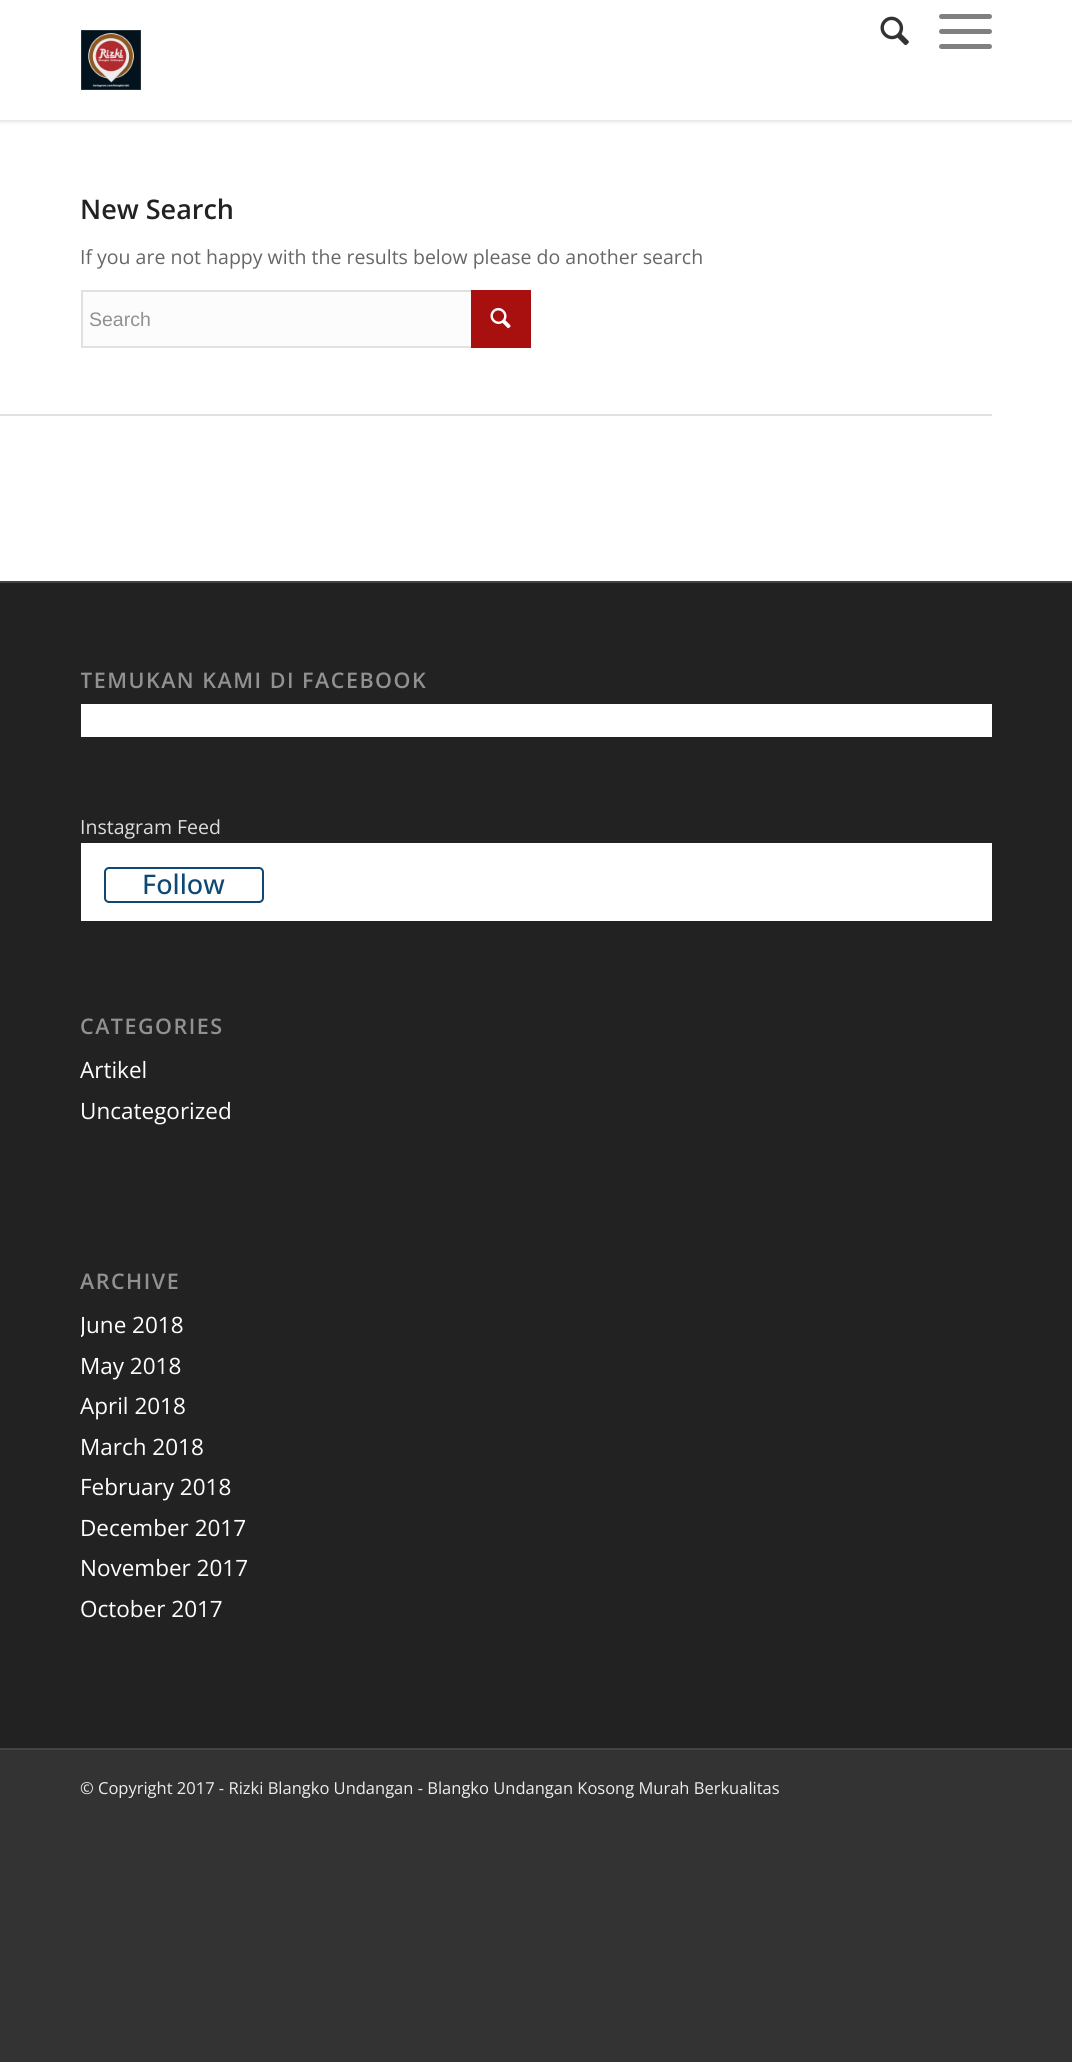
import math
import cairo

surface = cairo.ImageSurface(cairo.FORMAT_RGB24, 1072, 2062)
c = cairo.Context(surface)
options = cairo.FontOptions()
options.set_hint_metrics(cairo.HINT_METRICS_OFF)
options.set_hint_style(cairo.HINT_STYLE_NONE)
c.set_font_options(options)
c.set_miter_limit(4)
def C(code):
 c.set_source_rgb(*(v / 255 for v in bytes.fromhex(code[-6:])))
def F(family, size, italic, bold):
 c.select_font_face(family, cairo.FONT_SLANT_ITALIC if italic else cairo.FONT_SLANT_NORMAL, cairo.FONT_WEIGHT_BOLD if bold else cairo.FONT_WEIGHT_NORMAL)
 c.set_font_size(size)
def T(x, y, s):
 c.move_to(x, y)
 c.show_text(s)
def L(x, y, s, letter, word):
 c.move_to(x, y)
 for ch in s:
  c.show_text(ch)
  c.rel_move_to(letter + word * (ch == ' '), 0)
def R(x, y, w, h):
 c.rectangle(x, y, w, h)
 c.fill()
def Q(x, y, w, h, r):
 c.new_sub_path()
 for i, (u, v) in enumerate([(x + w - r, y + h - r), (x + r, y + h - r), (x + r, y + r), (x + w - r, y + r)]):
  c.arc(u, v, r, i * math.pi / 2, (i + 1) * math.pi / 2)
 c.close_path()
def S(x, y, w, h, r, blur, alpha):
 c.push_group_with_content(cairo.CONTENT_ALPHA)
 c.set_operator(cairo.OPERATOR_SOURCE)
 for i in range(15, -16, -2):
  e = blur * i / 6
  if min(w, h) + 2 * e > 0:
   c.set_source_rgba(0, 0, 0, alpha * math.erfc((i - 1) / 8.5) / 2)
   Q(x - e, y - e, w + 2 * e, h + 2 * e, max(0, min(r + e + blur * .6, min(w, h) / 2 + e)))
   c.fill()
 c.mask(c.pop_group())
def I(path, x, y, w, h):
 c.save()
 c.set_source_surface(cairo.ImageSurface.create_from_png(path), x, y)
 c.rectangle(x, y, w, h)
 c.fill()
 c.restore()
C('333333')
c.paint()
C('ffffff')
R(0,120,1072,461)
C('000000')
S(-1,-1,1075,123,0,1.5,.1)
C('ffffff')
R(0,0,1072,120)
I('1.png',81,30,60,60)
I('2.png',880,16,29,30)
C('808080')
Q(939,29,53,5,2.5)
c.fill()
Q(939,14,53,5,2.5)
c.fill()
Q(939,44,53,5,2.5)
c.fill()
F('Open Sans SemiBold',27,0,0)
C('222222')
T(80,219,'New Search')
F('Open Sans',19.5,0,0)
C('666666')
T(80,264,'If you are not happy with the results below please do another search')
C('fcfcfc')
R(83,292,388,54)
c.rectangle(82,291,448,56)
C('e1e1e1')
c.stroke()
F('Liberation Sans',19.5,0,0)
C('919191')
T(89,326,'Search')
C('a81010')
R(471,290,60,58)
I('3.png',490,308,21,21)
C('e1e1e1')
R(0,414,992,2)
C('222222')
R(0,583,1072,1165)
C('444444')
R(0,581,1072,2)
c.save()
c.rectangle(81,650,911,87)
c.clip()
F('Open Sans SemiBold',21.5,0,0)
C('919191')
L(80,688,'TEMUKAN KAMI DI FACEBOOK',1.5,0)
c.restore()
C('ffffff')
R(81,704,911,33)
F('Open Sans',19.5,0,0)
C('dddddd')
T(80,834,'Instagram Feed')
C('ffffff')
R(81,843,911,78)
Q(105,868,158,34,4)
C('0f4973')
c.stroke()
F('Open Sans Medium',27,0,0)
T(142,894,'Follow')
F('Open Sans SemiBold',21.5,0,0)
C('919191')
L(80,1034,'CATEGORIES',1.5,0)
F('Open Sans',22.5,0,0)
C('ffffff')
T(80,1078,'Artikel')
T(80,1119,'Uncategorized')
F('Open Sans SemiBold',21.5,0,0)
C('919191')
L(80,1289,'ARCHIVE',1.5,0)
c.save()
c.rectangle(81,1251,911,378)
c.clip()
F('Open Sans',22.5,0,0)
C('ffffff')
T(80,1333,'June 2018')
c.restore()
F('Open Sans',22.5,0,0)
C('ffffff')
T(80,1374,'May 2018')
T(80,1414,'April 2018')
T(80,1455,'March 2018')
T(80,1495,'February 2018')
T(80,1536,'December 2017')
T(80,1576,'November 2017')
T(80,1617,'October 2017')
C('444444')
R(0,1748,1072,2)
F('Open Sans',16.5,0,0)
C('eeeeee')
T(80,1794,'© Copyright 2017 - Rizki Blangko Undangan - Blangko Undangan Kosong Murah Berkualitas')
surface.write_to_png('o.png')
